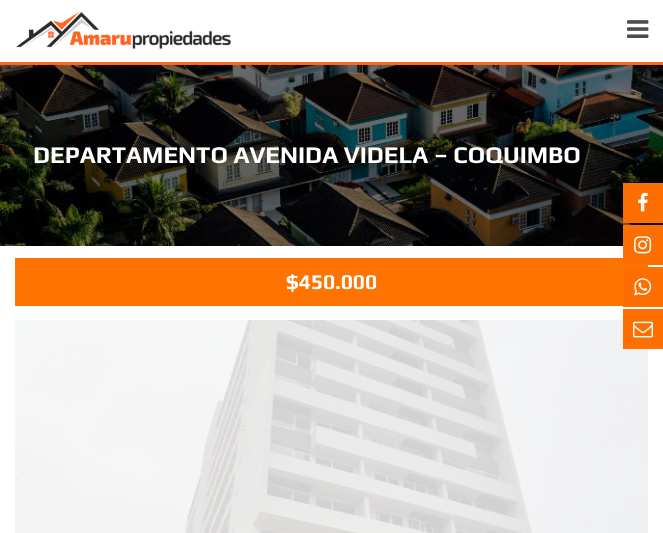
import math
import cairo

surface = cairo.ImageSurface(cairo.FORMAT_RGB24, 663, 533)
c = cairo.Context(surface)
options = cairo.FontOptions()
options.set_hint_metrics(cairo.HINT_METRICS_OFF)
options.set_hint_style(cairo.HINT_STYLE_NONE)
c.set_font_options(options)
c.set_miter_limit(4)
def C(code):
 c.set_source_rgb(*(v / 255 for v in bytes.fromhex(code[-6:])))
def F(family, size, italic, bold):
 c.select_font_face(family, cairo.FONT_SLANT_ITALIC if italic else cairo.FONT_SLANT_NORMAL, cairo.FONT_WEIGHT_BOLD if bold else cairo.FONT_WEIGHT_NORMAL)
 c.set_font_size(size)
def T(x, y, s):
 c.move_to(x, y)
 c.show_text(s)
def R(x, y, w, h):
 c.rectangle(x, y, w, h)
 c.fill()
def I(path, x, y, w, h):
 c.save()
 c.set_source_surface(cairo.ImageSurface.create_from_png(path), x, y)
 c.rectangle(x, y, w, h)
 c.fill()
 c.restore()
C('ffffff')
c.paint()
I('1.png',16,11,215,38)
I('2.png',627,20,22,18)
C('ff6521')
R(0,62,663,3)
I('3.png',0,65,663,181)
F('Play',24,0,1)
C('ffffff')
T(33,163,'DEPARTAMENTO AVENIDA VIDELA – COQUIMBO')
C('ff7400')
R(15,258,633,48)
F('Play',21,0,1)
C('ffffff')
T(286,289,'$450.000')
I('4.png',15,320,633,213)
C('ff6e01')
R(623,183,40,40)
I('5.png',638,192,10,20)
R(623,225,40,40)
I('6.png',634,236,18,18)
R(623,267,40,40)
I('7.png',634,278,18,18)
R(623,309,40,40)
I('8.png',633,321,20,17)
surface.write_to_png('o.png')
